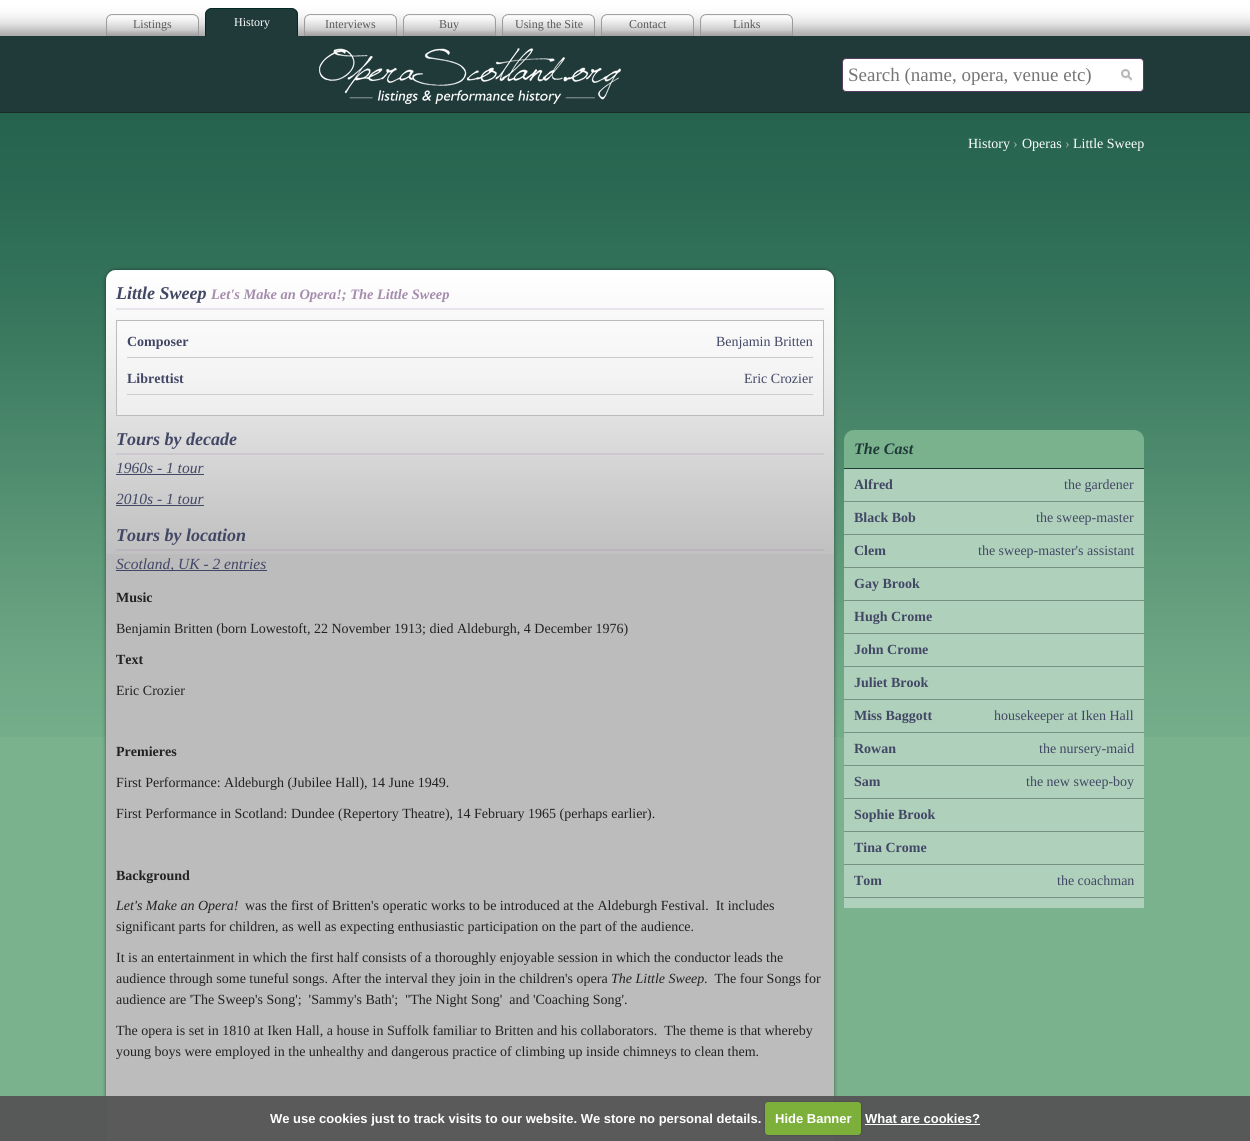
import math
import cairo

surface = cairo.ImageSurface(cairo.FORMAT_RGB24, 1250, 1141)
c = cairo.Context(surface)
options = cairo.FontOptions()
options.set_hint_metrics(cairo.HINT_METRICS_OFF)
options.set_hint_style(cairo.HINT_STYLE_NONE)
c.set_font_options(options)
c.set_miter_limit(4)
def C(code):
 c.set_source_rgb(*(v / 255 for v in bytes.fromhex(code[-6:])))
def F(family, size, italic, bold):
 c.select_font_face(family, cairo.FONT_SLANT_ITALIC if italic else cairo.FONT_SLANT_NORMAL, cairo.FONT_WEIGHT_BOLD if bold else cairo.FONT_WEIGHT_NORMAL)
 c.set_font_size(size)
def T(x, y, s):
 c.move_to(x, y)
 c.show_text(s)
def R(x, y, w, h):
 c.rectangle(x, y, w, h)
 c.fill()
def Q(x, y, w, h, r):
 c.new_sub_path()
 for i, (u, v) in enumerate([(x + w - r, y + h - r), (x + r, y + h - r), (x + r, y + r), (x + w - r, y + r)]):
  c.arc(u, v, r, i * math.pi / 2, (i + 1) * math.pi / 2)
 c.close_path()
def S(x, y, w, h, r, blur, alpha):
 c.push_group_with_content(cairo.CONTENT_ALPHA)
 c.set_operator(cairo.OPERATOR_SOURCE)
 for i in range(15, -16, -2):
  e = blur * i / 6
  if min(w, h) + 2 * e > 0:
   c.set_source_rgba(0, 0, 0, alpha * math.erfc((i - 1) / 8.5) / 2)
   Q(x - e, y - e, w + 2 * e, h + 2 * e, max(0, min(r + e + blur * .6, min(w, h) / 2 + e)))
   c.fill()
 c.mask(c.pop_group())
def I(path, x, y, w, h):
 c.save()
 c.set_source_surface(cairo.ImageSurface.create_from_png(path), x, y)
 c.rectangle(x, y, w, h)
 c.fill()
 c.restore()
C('7ab28e')
c.paint()
I('1.png',0,0,1250,737)
I('2.png',106,14,93,22)
F('Liberation Serif',12,0,0)
C('595959')
T(133,28,'Listings')
I('3.png',205,8,93,28)
C('ffffff')
T(234,26,'History')
I('2.png',304,14,93,22)
C('595959')
T(325,28,'Interviews')
I('2.png',403,14,93,22)
T(439,28,'Buy')
I('2.png',502,14,93,22)
T(515,28,'Using the Site')
I('2.png',601,14,93,22)
T(629,28,'Contact')
I('2.png',700,14,93,22)
T(733,28,'Links')
I('4.png',319,48,302,56)
C('ffffff')
Q(842.5,58.5,301,33,3.5)
c.fill_preserve()
C('563c67')
c.set_line_width(1)
c.stroke()
F('Liberation Serif',19,0,0)
C('757575')
T(848,81,'Search (name, opera, venue etc)')
I('5.png',1121,69,12,13)
F('Liberation Serif',14,0,0)
C('ffffff')
T(968,148,'History')
C('aaaaaa')
T(1013,148,'›')
C('ffffff')
T(1022,148,'Operas')
C('aaaaaa')
T(1065,148,'›')
C('ffffff')
T(1073,148,'Little Sweep')
C('000000')
S(106,270,728,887,10,2,.5)
C('bcbcbc')
c.new_path()
c.move_to(116,270)
c.line_to(824,270)
c.curve_to(829.5,270,834,274.5,834,280)
c.line_to(834,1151)
c.line_to(106,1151)
c.line_to(106,280)
c.curve_to(106,274.5,110.5,270,116,270)
c.close_path()
c.fill()
I('6.png',106,270,728,284)
C('e9e4eb')
R(116,308,708,2)
F('Liberation Serif',18,1,1)
C('424765')
T(116,299,'Little Sweep')
F('Liberation Serif',14.4,1,1)
C('a58cad')
T(211,299,'Let\'s Make an Opera!; The Little Sweep')
c.set_source_rgba(1,1,1,0.4)
c.rectangle(116.5,320.5,707,95)
c.fill_preserve()
C('bcbcbc')
c.stroke()
F('Liberation Serif',14,0,1)
C('424765')
T(127,346,'Composer')
C('cccccc')
R(127,357,686,1)
F('Liberation Serif',14,0,0)
C('424765')
T(716,346,'Benjamin Britten')
F('Liberation Serif',14,0,1)
T(127,383,'Librettist')
C('cccccc')
R(127,394,686,1)
F('Liberation Serif',14,0,0)
C('424765')
T(744,383,'Eric Crozier')
C('cdc8cf')
R(116,453,708,2)
F('Liberation Serif',18,1,1)
C('424765')
T(116,445,'Tours by decade')
F('Liberation Serif',15.5,1,0)
T(116,473,'1960s - 1 tour')
R(116,474,88,1)
T(116,504,'2010s - 1 tour')
R(116,505,88,1)
C('bbb6bd')
R(116,549,708,2)
F('Liberation Serif',18,1,1)
C('424765')
T(116,541,'Tours by location')
R(116,570,151,1)
F('Liberation Serif',15.5,1,0)
T(116,569,'Scotland, UK - 2 entries')
F('Liberation Serif',14,0,1)
C('222222')
T(116,602,'Music')
F('Liberation Serif',14,0,0)
T(116,633,'Benjamin Britten (born Lowestoft, 22 November 1913; died Aldeburgh, 4 December 1976)')
F('Liberation Serif',14,0,1)
T(116,664,'Text')
F('Liberation Serif',14,0,0)
T(116,695,'Eric Crozier')
F('Liberation Serif',14,0,1)
T(116,756,'Premieres')
F('Liberation Serif',14,0,0)
T(116,787,'First Performance: Aldeburgh (Jubilee Hall), 14 June 1949.')
T(116,818,'First Performance in Scotland: Dundee (Repertory Theatre), 14 February 1965 (perhaps earlier).')
F('Liberation Serif',14,0,1)
T(116,880,'Background')
F('Liberation Serif',14,1,0)
T(116,910,'Let\'s Make an Opera!')
F('Liberation Serif',14,0,0)
T(245,910,'was the first of Britten\'s operatic works to be introduced at the Aldeburgh Festival.  It includes')
T(116,931,'significant parts for children, as well as expecting enthusiastic participation on the part of the audience.')
T(116,962,'It is an entertainment in which the first half consists of a thoroughly enjoyable session in which the conductor leads the')
T(116,983,'audience through some tuneful songs. After the interval they join in the children\'s opera')
F('Liberation Serif',14,1,0)
T(611,983,'The Little Sweep')
F('Liberation Serif',14,0,0)
T(704,983,'.  The four Songs for')
T(116,1004,'audience are \'The Sweep\'s Song\';  \'Sammy\'s Bath\';  \'\'The Night Song\'  and \'Coaching Song\'.')
T(116,1035,'The opera is set in 1810 at Iken Hall, a house in Suffolk familiar to Britten and his collaborators.  The theme is that whereby')
T(116,1056,'young boys were employed in the unhealthy and dangerous practice of climbing up inside chimneys to clean them.')
C('7ab28e')
c.new_path()
c.move_to(854,430)
c.line_to(1134,430)
c.curve_to(1139.5,430,1144,434.5,1144,440)
c.line_to(1144,928)
c.line_to(844,928)
c.line_to(844,440)
c.curve_to(844,434.5,848.5,430,854,430)
c.close_path()
c.fill()
F('Liberation Serif',16,1,1)
C('1f3a39')
T(854,454,'The Cast')
C('afd1bb')
R(844,469,300,439)
C('1f3a39')
R(844,468,300,1)
F('Liberation Serif',14,0,1)
C('424765')
T(854,489,'Alfred')
C('779283')
R(844,501,300,1)
F('Liberation Serif',14,0,0)
C('424765')
T(1064,489,'the gardener')
F('Liberation Serif',14,0,1)
T(854,522,'Black Bob')
C('779283')
R(844,534,300,1)
F('Liberation Serif',14,0,0)
C('424765')
T(1036,522,'the sweep-master')
F('Liberation Serif',14,0,1)
T(854,555,'Clem')
C('779283')
R(844,567,300,1)
F('Liberation Serif',14,0,0)
C('424765')
T(978,555,'the sweep-master\'s assistant')
F('Liberation Serif',14,0,1)
T(854,588,'Gay Brook')
C('779283')
R(844,600,300,1)
C('424765')
T(854,621,'Hugh Crome')
C('779283')
R(844,633,300,1)
C('424765')
T(854,654,'John Crome')
C('779283')
R(844,666,300,1)
C('424765')
T(854,687,'Juliet Brook')
C('779283')
R(844,699,300,1)
C('424765')
T(854,720,'Miss Baggott')
C('779283')
R(844,732,300,1)
F('Liberation Serif',14,0,0)
C('424765')
T(994,720,'housekeeper at Iken Hall')
F('Liberation Serif',14,0,1)
T(854,753,'Rowan')
C('779283')
R(844,765,300,1)
F('Liberation Serif',14,0,0)
C('424765')
T(1039,753,'the nursery-maid')
F('Liberation Serif',14,0,1)
T(854,786,'Sam')
C('779283')
R(844,798,300,1)
F('Liberation Serif',14,0,0)
C('424765')
T(1026,786,'the new sweep-boy')
F('Liberation Serif',14,0,1)
T(854,819,'Sophie Brook')
C('779283')
R(844,831,300,1)
C('424765')
T(854,852,'Tina Crome')
C('779283')
R(844,864,300,1)
C('424765')
T(854,885,'Tom')
C('779283')
R(844,897,300,1)
F('Liberation Serif',14,0,0)
C('424765')
T(1057,885,'the coachman')
c.set_source_rgba(0.337,0.337,0.337,0.95)
R(0,1096,1250,45)
F('Liberation Sans',13,0,1)
C('ffffff')
T(270,1123,'We use cookies just to track visits to our website. We store no personal details.')
C('000000')
S(765,1102,96,33,3,1,.25)
C('7daf3b')
Q(765,1102,96,33,3)
c.fill()
C('ffffff')
T(775,1123,'Hide Banner')
T(865,1123,'What are cookies?')
R(865,1124,115,1)
surface.write_to_png('o.png')
